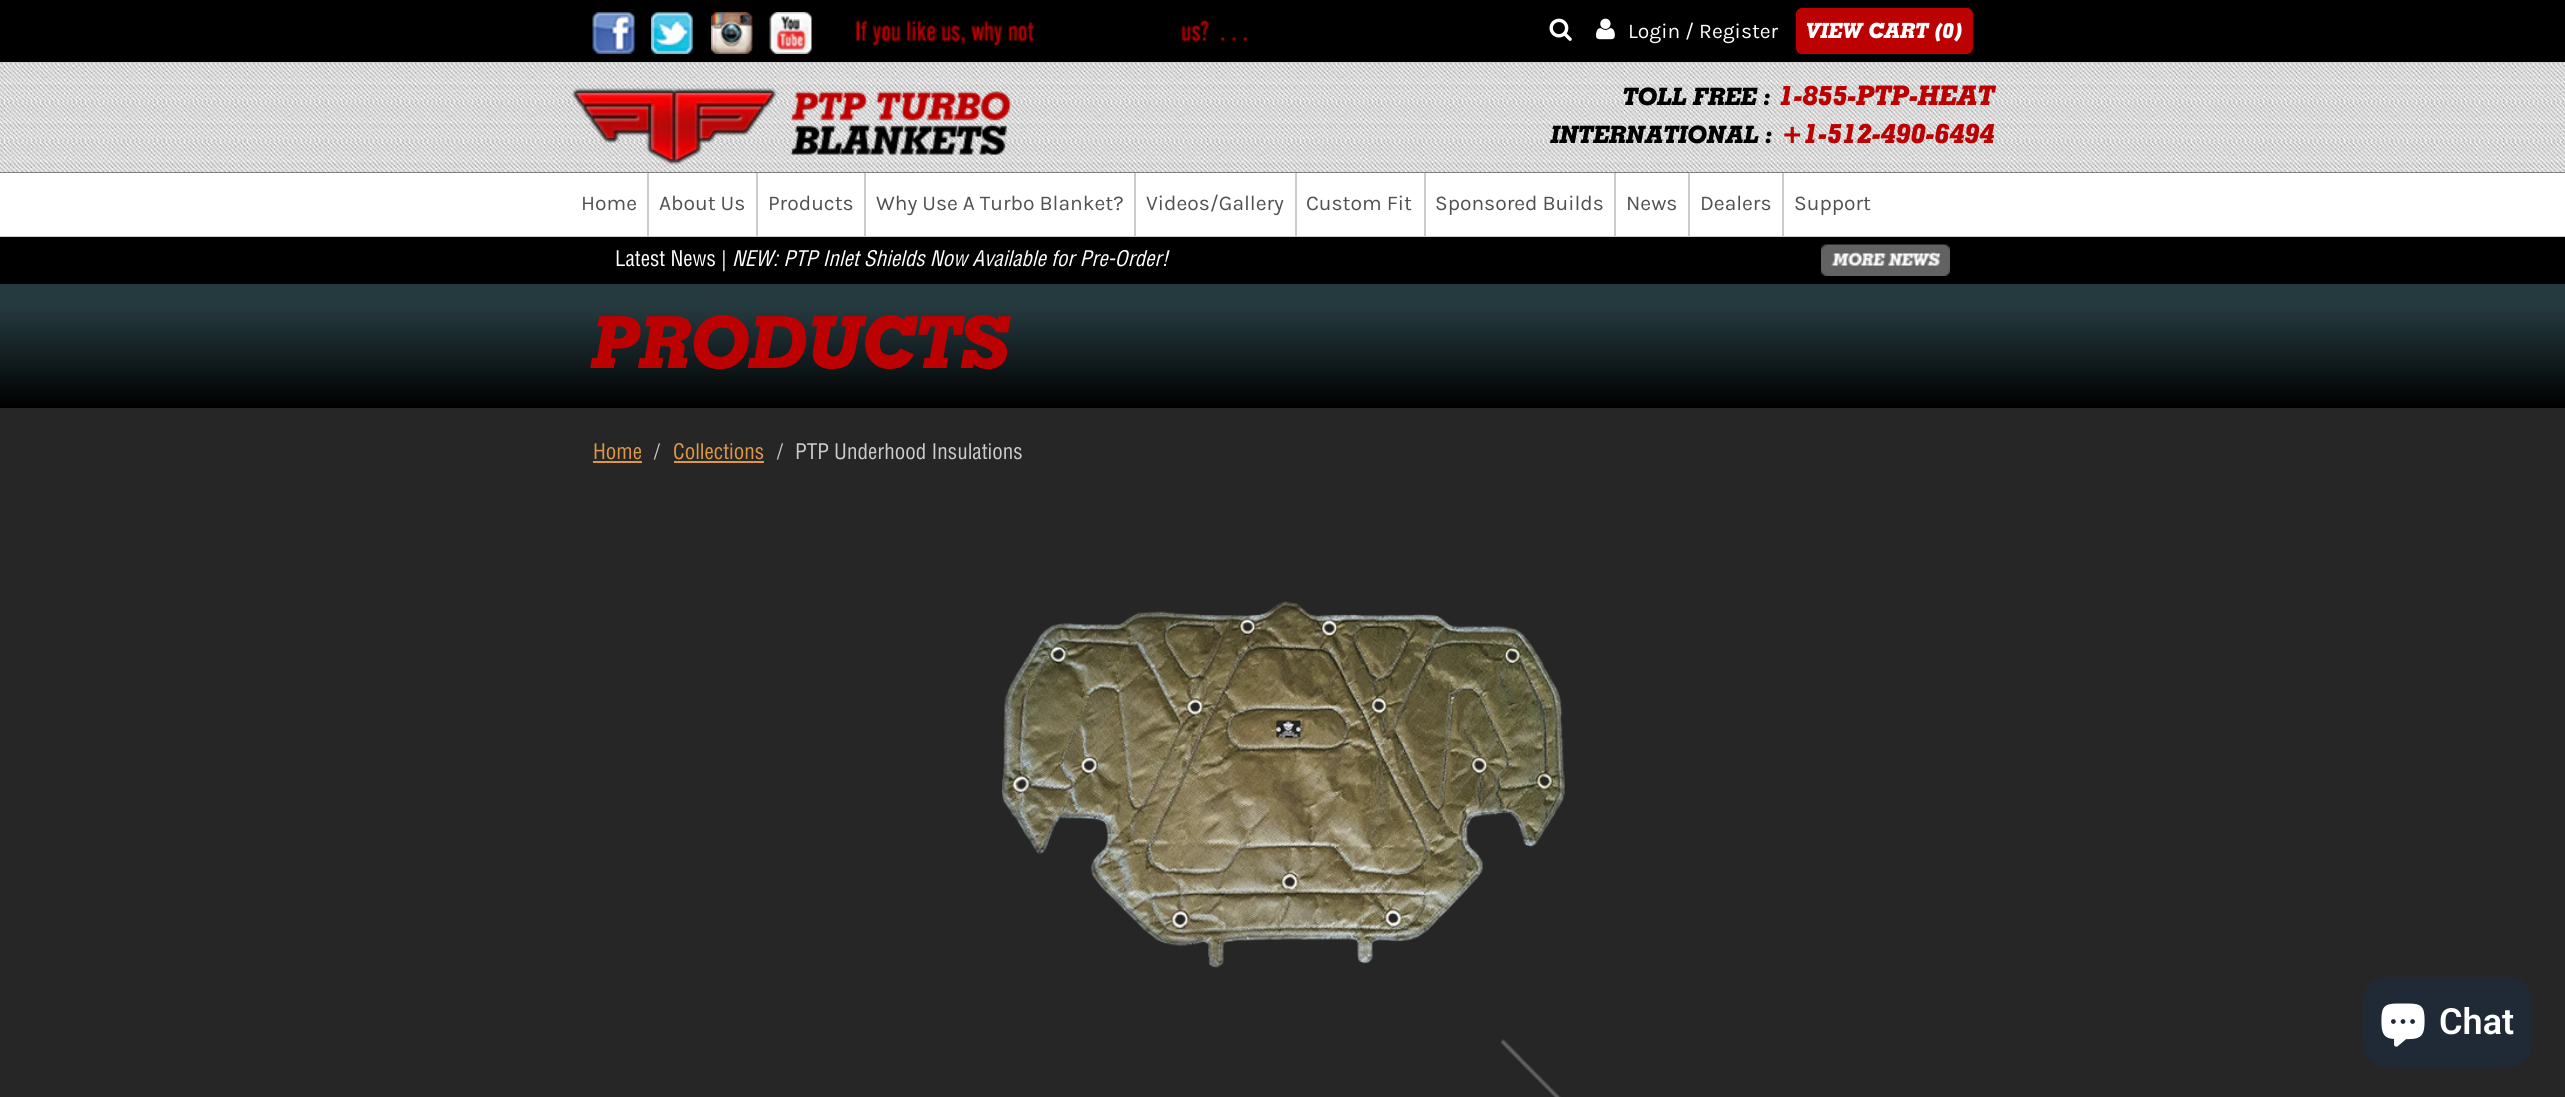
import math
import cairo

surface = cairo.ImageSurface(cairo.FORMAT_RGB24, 2565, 1097)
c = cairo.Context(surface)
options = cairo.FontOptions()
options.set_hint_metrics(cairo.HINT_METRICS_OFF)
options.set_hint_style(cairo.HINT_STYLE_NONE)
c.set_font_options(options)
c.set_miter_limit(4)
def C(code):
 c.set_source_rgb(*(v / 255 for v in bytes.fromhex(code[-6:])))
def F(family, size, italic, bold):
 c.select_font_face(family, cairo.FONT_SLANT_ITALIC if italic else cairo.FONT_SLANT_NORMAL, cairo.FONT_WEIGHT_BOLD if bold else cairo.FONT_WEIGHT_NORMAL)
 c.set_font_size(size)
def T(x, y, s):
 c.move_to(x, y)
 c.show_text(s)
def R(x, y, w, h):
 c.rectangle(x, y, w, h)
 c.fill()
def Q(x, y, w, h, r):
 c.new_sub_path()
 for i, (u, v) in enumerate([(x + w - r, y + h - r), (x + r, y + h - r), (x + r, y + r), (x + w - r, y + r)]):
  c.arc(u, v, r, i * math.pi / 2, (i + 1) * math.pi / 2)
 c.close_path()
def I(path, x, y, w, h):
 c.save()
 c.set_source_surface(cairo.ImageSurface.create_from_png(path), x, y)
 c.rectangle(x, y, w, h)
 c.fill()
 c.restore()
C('ffffff')
c.paint()
C('000000')
R(0,0,2565,62)
C('cccccc')
R(0,62,2565,1)
I('1.png',592,12,43,42)
I('2.png',651,12,42,42)
I('3.png',711,12,42,42)
I('4.png',769,12,43,42)
I('5.png',856,20,178,26)
I('6.png',1181,20,66,23)
I('7.png',1549,18,23,23)
I('8.png',1596,18,19,22)
F('Karla',21,0,0)
C('ffffff')
T(1628,38,'Login / Register')
C('bb0101')
Q(1796,8,177,46,6)
c.fill()
F('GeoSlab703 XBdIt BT',21,0,1)
C('ffffff')
T(1806,38,'VIEW CART (0)')
C('262626')
R(0,172,2565,1)
I('9.png',0,63,2565,110)
I('10.png',571,88,441,77)
F('GeoSlab703 XBdIt BT',24,0,1)
C('000000')
T(1623,105,'TOLL FREE :')
F('GeoSlab703 XBdIt BT',27,0,1)
C('bb0101')
T(1779,105,'1-855-PTP-HEAT')
F('GeoSlab703 XBdIt BT',24,0,1)
C('000000')
T(1551,143,'INTERNATIONAL :')
F('GeoSlab703 XBdIt BT',27,0,1)
C('bb0101')
T(1781,143,'+1-512-490-6494')
C('cccccc')
R(0,236,2565,1)
R(647,173,2,63)
F('Karla',21,0,0)
C('515151')
T(581,210,'Home')
C('cccccc')
R(756,173,2,63)
C('515151')
T(659,210,'About Us')
C('cccccc')
R(864,173,2,63)
C('515151')
T(768,210,'Products')
C('cccccc')
R(1134,173,2,63)
C('515151')
T(876,210,'Why Use A Turbo Blanket?')
C('cccccc')
R(1295,173,2,63)
C('515151')
T(1146,210,'Videos/Gallery')
C('cccccc')
R(1424,173,2,63)
C('515151')
T(1306,210,'Custom Fit')
C('cccccc')
R(1614,173,2,63)
C('515151')
T(1435,210,'Sponsored Builds')
C('cccccc')
R(1688,173,2,63)
C('515151')
T(1626,210,'News')
C('cccccc')
R(1782,173,2,63)
C('515151')
T(1700,210,'Dealers')
T(1794,210,'Support')
C('000000')
R(0,237,2565,47)
F('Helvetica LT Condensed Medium',21,0,0)
C('ffffff')
T(615,266,'Latest News |')
F('Helvetica LT Condensed Medium',21,1,0)
T(732,266,'NEW: PTP Inlet Shields Now Available for Pre-Order!')
I('11.png',1821,244,129,32)
C('262626')
R(0,408,2565,689)
gradient = cairo.LinearGradient(1283,283,1283,408)
gradient.add_color_stop_rgba(0,0.145,0.227,0.247,1)
gradient.add_color_stop_rgba(.19,0.145,0.227,0.247,1)
gradient.add_color_stop_rgba(1,0,0,0,1)
c.set_source(gradient)
R(0,284,2565,124)
F('GeoSlab703 XBdIt BT',72,0,1)
C('bb0101')
T(593,368,'PRODUCTS')
F('Helvetica LT Condensed Medium',21,0,0)
C('dc9848')
T(593,459,'Home')
R(593,461,49,2)
C('cccccc')
T(654,459,'/')
C('dc9848')
T(673,459,'Collections')
R(674,461,90,2)
C('cccccc')
T(777,459,'/')
T(795,459,'PTP Underhood Insulations')
I('12.png',1002,601,563,367)
I('13.png',1500,1039,61,58)
C('202a36')
Q(2363,977,169,90,24)
c.fill()
I('14.png',2381,1003,44,44)
F('Roboto SemiBold',36,0,0)
C('ffffff')
T(2439,1034,'Chat')
surface.write_to_png('o.png')
